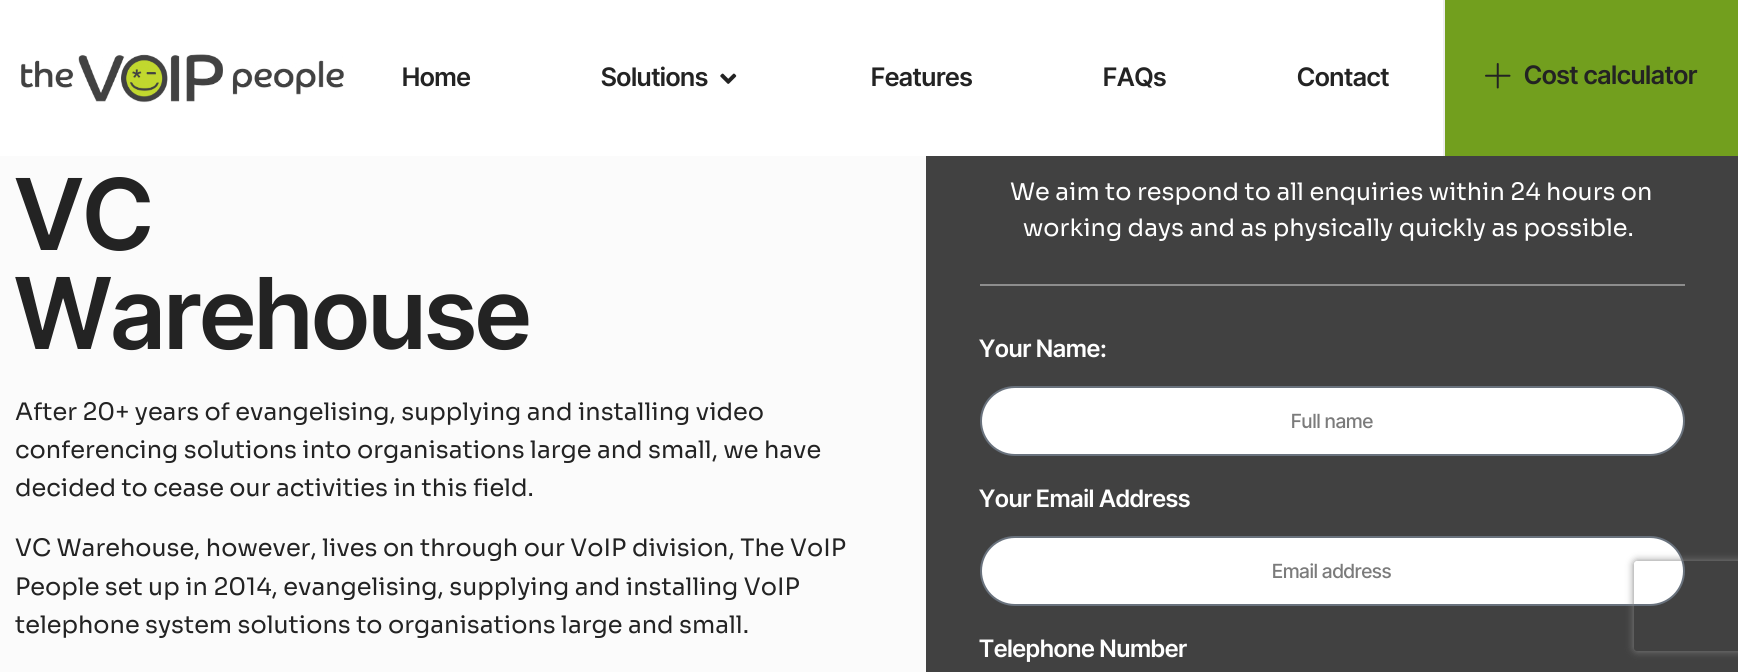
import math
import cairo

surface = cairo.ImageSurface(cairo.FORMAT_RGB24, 1738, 672)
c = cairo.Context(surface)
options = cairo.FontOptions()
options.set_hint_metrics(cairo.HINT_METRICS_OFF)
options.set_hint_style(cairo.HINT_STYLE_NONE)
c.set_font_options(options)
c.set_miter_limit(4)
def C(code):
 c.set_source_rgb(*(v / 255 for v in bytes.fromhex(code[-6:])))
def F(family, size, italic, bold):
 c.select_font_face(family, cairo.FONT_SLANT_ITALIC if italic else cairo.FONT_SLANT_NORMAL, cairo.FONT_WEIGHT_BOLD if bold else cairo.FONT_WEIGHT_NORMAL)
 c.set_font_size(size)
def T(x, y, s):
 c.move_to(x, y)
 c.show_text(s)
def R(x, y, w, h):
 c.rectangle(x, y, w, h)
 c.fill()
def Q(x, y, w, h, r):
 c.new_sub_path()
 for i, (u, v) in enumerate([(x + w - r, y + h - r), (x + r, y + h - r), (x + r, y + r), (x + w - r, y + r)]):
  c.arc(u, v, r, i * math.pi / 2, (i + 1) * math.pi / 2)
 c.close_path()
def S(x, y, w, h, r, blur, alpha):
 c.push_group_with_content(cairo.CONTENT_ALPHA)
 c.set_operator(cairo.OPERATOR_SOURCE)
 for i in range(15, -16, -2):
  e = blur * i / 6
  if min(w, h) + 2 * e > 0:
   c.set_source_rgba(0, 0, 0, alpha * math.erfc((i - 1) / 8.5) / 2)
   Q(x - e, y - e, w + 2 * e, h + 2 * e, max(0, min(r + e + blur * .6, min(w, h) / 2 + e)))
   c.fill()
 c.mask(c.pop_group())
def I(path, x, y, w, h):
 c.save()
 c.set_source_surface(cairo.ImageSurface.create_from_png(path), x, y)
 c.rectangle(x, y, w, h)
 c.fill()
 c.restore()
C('fbfbfb')
c.paint()
C('ffffff')
R(0,0,1443,156)
I('1.png',21,54,323,49)
F('Inter Tight SemiBold',25.5,0,0)
C('232323')
T(402,86,'Home')
T(601,86,'Solutions')
I('2.png',720,73,17,11)
T(871,86,'Features')
T(1103,86,'FAQs')
T(1297,86,'Contact')
C('729f1e')
R(1445,0,293,156)
C('eeeeee')
R(1443,0,2,156)
I('3.png',1485,63,26,26)
C('232323')
T(1524,84,'Cost calculator')
F('Inter Tight SemiBold',99,0,0)
T(15,250,'VC')
T(15,349,'Warehouse')
F('Sora',24,0,0)
T(15,420,'After 20+ years of evangelising, supplying and installing video')
T(15,458,'conferencing solutions into organisations large and small, we have')
T(15,496,'decided to cease our activities in this field.')
T(15,556,'VC Warehouse, however, lives on through our VoIP division, The VoIP')
T(15,595,'People set up in 2014, evangelising, supplying and installing VoIP')
T(15,633,'telephone system solutions to organisations large and small.')
C('414141')
R(926,156,812,516)
C('ffffff')
T(1010,200,'We aim to respond to all enquiries within 24 hours on')
T(1023,236,'working days and as physically quickly as possible.')
C('8d8d8d')
R(980,284,705,2)
F('Inter Tight SemiBold',24,0,0)
C('ffffff')
T(979,357,'Your Name:')
Q(981,387,703,68,34)
c.fill_preserve()
C('69727d')
c.stroke()
F('Inter Tight Medium',19.5,0,0)
C('7b7b7b')
T(1291,428,'Full name')
F('Inter Tight SemiBold',24,0,0)
C('ffffff')
T(979,507,'Your Email Address')
Q(981,537,703,68,34)
c.fill_preserve()
C('69727d')
c.stroke()
F('Inter Tight Medium',19.5,0,0)
C('7b7b7b')
T(1272,578,'Email address')
F('Inter Tight SemiBold',24,0,0)
C('ffffff')
T(979,657,'Telephone Number')
c.save()
c.set_fill_rule(cairo.FILL_RULE_EVEN_ODD)
c.new_path()
c.move_to(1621,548)
c.line_to(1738,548)
c.line_to(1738,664)
c.line_to(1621,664)
c.close_path()
c.move_to(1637,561)
c.line_to(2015,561)
c.curve_to(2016.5,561,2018,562.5,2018,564)
c.line_to(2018,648)
c.curve_to(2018,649.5,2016.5,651,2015,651)
c.line_to(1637,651)
c.curve_to(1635.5,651,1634,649.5,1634,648)
c.line_to(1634,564)
c.curve_to(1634,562.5,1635.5,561,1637,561)
c.close_path()
c.clip()
C('808080')
S(1634,561,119,90,3,4,1)
c.restore()
surface.write_to_png('o.png')
